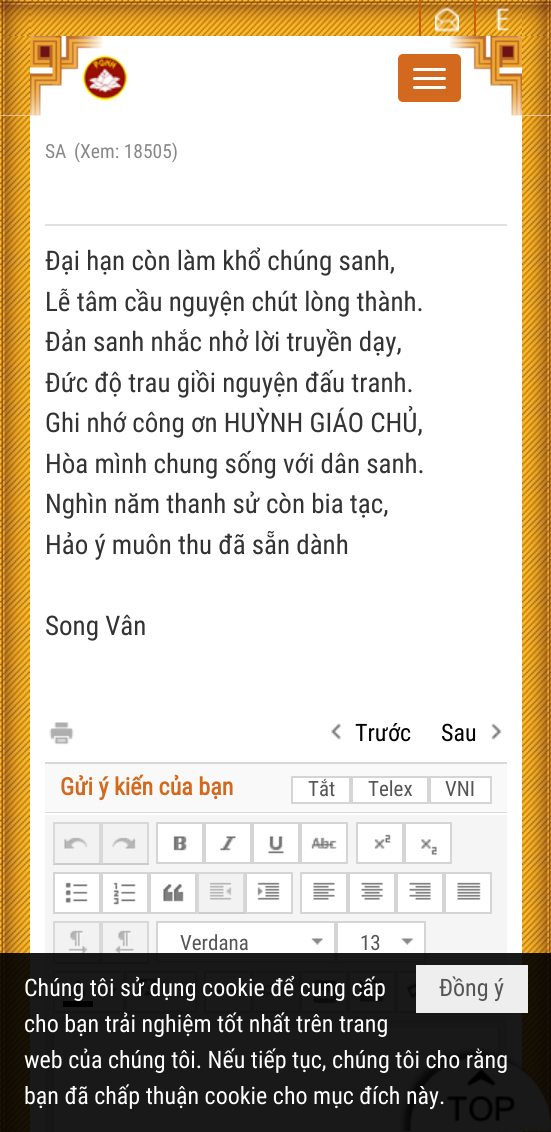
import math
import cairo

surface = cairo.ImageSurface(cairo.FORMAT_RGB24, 551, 1132)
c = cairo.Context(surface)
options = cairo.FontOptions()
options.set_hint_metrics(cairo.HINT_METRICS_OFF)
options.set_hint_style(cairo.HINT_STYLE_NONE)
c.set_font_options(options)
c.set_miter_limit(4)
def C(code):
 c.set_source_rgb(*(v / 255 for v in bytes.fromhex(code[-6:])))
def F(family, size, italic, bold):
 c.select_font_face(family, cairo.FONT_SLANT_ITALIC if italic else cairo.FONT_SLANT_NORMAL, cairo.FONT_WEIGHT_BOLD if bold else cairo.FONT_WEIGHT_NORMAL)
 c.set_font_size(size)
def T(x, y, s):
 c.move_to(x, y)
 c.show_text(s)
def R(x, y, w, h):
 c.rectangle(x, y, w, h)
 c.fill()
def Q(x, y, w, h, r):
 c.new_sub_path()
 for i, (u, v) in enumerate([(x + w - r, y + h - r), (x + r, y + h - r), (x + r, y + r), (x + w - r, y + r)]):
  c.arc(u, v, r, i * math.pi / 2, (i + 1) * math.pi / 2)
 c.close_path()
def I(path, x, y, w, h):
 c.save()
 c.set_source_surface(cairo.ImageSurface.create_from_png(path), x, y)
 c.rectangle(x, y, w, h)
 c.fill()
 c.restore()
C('ffffff')
c.paint()
I('1.png',0,116,551,1016)
I('2.png',0,0,551,36)
C('cc5d0e')
R(419,0,2,36)
I('3.png',435,7,24,25)
R(474,0,2,36)
I('4.png',496,8,13,23)
I('5.png',0,36,551,80)
I('6.png',30,36,492,80)
I('7.png',82,55,46,46)
C('d2691e')
Q(398,54,63,48,5)
c.fill()
C('ffffff')
Q(413,68,33,3,1.5)
c.fill()
Q(413,77,33,3,1.5)
c.fill()
Q(413,86,33,3,1.5)
c.fill()
C('e1e1e1')
R(45,224,462,2)
F('Roboto Condensed',19.5,0,0)
C('888888')
T(45,158,'SA')
T(74,158,'(Xem: 18505)')
F('Roboto Condensed',27,0,0)
C('333333')
T(45,270,'Đại hạn còn làm khổ chúng sanh,')
T(45,311,'Lễ tâm cầu nguyện chút lòng thành.')
T(45,351,'Đản sanh nhắc nhở lời truyền dạy,')
T(45,392,'Đức độ trau giồi nguyện đấu tranh.')
T(45,432,'Ghi nhớ công ơn HUỲNH GIÁO CHỦ,')
T(45,473,'Hòa mình chung sống với dân sanh.')
T(45,513,'Nghìn năm thanh sử còn bia tạc,')
T(45,554,'Hảo ý muôn thu đã sẵn dành')
T(45,635,'Song Vân')
I('8.png',49,722,25,23)
I('9.png',331,723,10,17)
F('Roboto Condensed',24,0,0)
C('000000')
T(355,741,'Trước')
I('10.png',491,723,11,17)
T(441,741,'Sau')
C('f9f9f9')
R(45,764,462,48)
C('d9d9d9')
R(45,762,462,2)
R(45,812,462,1)
F('Roboto Condensed',24,0,1)
C('d2691e')
T(60,795,'Gửi ý kiến của bạn')
C('ffffff')
c.rectangle(292,777,58,26)
c.fill_preserve()
C('d5d5d5')
c.stroke()
F('Roboto Condensed',21,0,0)
C('555555')
T(308,796,'Tắt')
C('ffffff')
c.rectangle(352,777,76,26)
c.fill_preserve()
C('d5d5d5')
c.stroke()
C('555555')
T(368,796,'Telex')
C('ffffff')
c.rectangle(430,777,61,26)
c.fill_preserve()
C('d5d5d5')
c.stroke()
C('555555')
T(445,796,'VNI')
C('f5f5f5')
R(45,815,462,205)
C('f2f2f2')
R(55,824,44,39)
C('d8d8d8')
R(53,822,96,2)
R(99,822,2,42)
C('cccccc')
R(53,863,48,2)
C('d8d8d8')
R(53,822,2,42)
I('11.png',64,837,24,12)
C('f2f2f2')
R(103,824,44,39)
C('d8d8d8')
R(147,822,2,42)
C('cccccc')
R(101,863,48,2)
C('d8d8d8')
R(101,822,2,42)
I('12.png',112,837,24,12)
C('ffffff')
c.rectangle(157,823,46,40)
c.fill_preserve()
C('d5d5d5')
c.stroke()
I('13.png',173,836,15,15)
C('ffffff')
c.rectangle(205,823,46,40)
c.fill_preserve()
C('d5d5d5')
c.stroke()
I('14.png',220,836,16,15)
C('ffffff')
c.rectangle(253,823,46,40)
c.fill_preserve()
C('d5d5d5')
c.stroke()
I('15.png',268,836,16,18)
C('ffffff')
c.rectangle(301,823,46,40)
c.fill_preserve()
C('d5d5d5')
c.stroke()
I('16.png',311,837,26,12)
C('ffffff')
c.rectangle(357,823,46,40)
c.fill_preserve()
C('d5d5d5')
c.stroke()
I('17.png',374,834,17,15)
C('ffffff')
c.rectangle(405,823,46,40)
c.fill_preserve()
C('d5d5d5')
c.stroke()
I('18.png',421,839,16,16)
C('ffffff')
c.rectangle(54,873,46,40)
c.fill_preserve()
C('d5d5d5')
c.stroke()
I('19.png',65,882,23,21)
C('ffffff')
c.rectangle(102,873,46,40)
c.fill_preserve()
C('d5d5d5')
c.stroke()
I('20.png',113,882,23,23)
C('ffffff')
c.rectangle(150,873,46,40)
c.fill_preserve()
C('d5d5d5')
c.stroke()
I('21.png',163,884,21,18)
C('f2f2f2')
R(199,874,44,38)
C('d8d8d8')
R(197,872,48,2)
R(243,872,2,42)
C('cccccc')
R(197,912,48,2)
C('d8d8d8')
R(197,872,2,42)
I('22.png',209,882,23,18)
C('ffffff')
c.rectangle(246,873,46,40)
c.fill_preserve()
C('d5d5d5')
c.stroke()
I('23.png',257,882,23,18)
C('ffffff')
c.rectangle(301,873,46,40)
c.fill_preserve()
C('d5d5d5')
c.stroke()
I('24.png',313,882,22,18)
C('ffffff')
c.rectangle(349,873,46,40)
c.fill_preserve()
C('d5d5d5')
c.stroke()
I('25.png',361,882,22,18)
C('ffffff')
c.rectangle(397,873,46,40)
c.fill_preserve()
C('d5d5d5')
c.stroke()
I('26.png',409,882,22,18)
C('ffffff')
c.rectangle(445,873,46,40)
c.fill_preserve()
C('d5d5d5')
c.stroke()
I('27.png',457,882,24,18)
C('f2f2f2')
R(55,923,44,39)
C('d8d8d8')
R(53,921,96,2)
R(99,921,2,42)
C('cccccc')
R(53,962,48,2)
C('d8d8d8')
R(53,921,2,42)
I('28.png',68,930,20,24)
C('f2f2f2')
R(103,923,44,39)
C('d8d8d8')
R(147,921,2,42)
C('cccccc')
R(101,962,48,2)
C('d8d8d8')
R(101,921,2,42)
I('29.png',115,930,19,24)
C('ffffff')
c.rectangle(157,922,178,40)
c.fill_preserve()
C('d5d5d5')
c.stroke()
C('555555')
T(180,950,'Verdana')
I('30.png',311,938,12,7)
C('ffffff')
c.rectangle(337,922,88,40)
c.fill_preserve()
C('d5d5d5')
c.stroke()
C('555555')
T(360,950,'13')
I('31.png',401,938,12,7)
C('ffffff')
c.rectangle(54,972,70,40)
c.fill_preserve()
C('d5d5d5')
c.stroke()
I('32.png',70,980,16,16)
I('33.png',106,987,12,8)
C('000000')
R(63,1001,30,6)
C('ffffff')
c.rectangle(126,972,70,40)
c.fill_preserve()
C('d5d5d5')
c.stroke()
I('34.png',139,978,19,18)
I('33.png',178,987,12,8)
C('ffffff')
c.rectangle(205,972,46,40)
c.fill_preserve()
C('d5d5d5')
c.stroke()
I('35.png',215,989,24,4)
C('f2f2f2')
R(254,973,45,38)
C('d8d8d8')
R(252,971,48,2)
R(299,971,1,42)
C('cccccc')
R(252,1011,48,2)
C('d8d8d8')
R(252,971,2,42)
I('36.png',262,984,28,12)
C('ffffff')
c.rectangle(301,972,46,40)
c.fill_preserve()
C('d5d5d5')
c.stroke()
I('37.png',313,980,24,24)
C('ffffff')
c.rectangle(349,972,46,40)
c.fill_preserve()
C('d5d5d5')
c.stroke()
I('38.png',359,980,24,22)
C('ffffff')
R(398,973,18,38)
c.rectangle(397,972,46,40)
C('d5d5d5')
c.stroke()
I('39.png',406,982,10,17)
C('efefef')
R(45,1022,462,110)
C('e3e3e3')
R(45,1020,462,2)
c.rectangle(54,1029,445,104)
C('d5d5d5')
c.stroke()
C('ffffff')
R(54,1028,444,104)
I('40.png',399,1047,152,85)
c.set_source_rgba(0,0,0,0.9)
R(0,953,551,179)
F('Roboto Condensed',24,0,0)
C('ffffff')
T(24,996,'Chúng tôi sử dụng cookie để cung cấp')
T(24,1032,'cho bạn trải nghiệm tốt nhất trên trang')
T(24,1068,'web của chúng tôi. Nếu tiếp tục, chúng tôi cho rằng')
T(24,1104,'bạn đã chấp thuận cookie cho mục đích này.')
C('eeeeee')
R(416,965,112,48)
C('555555')
T(439,996,'Đồng ý')
surface.write_to_png('o.png')
